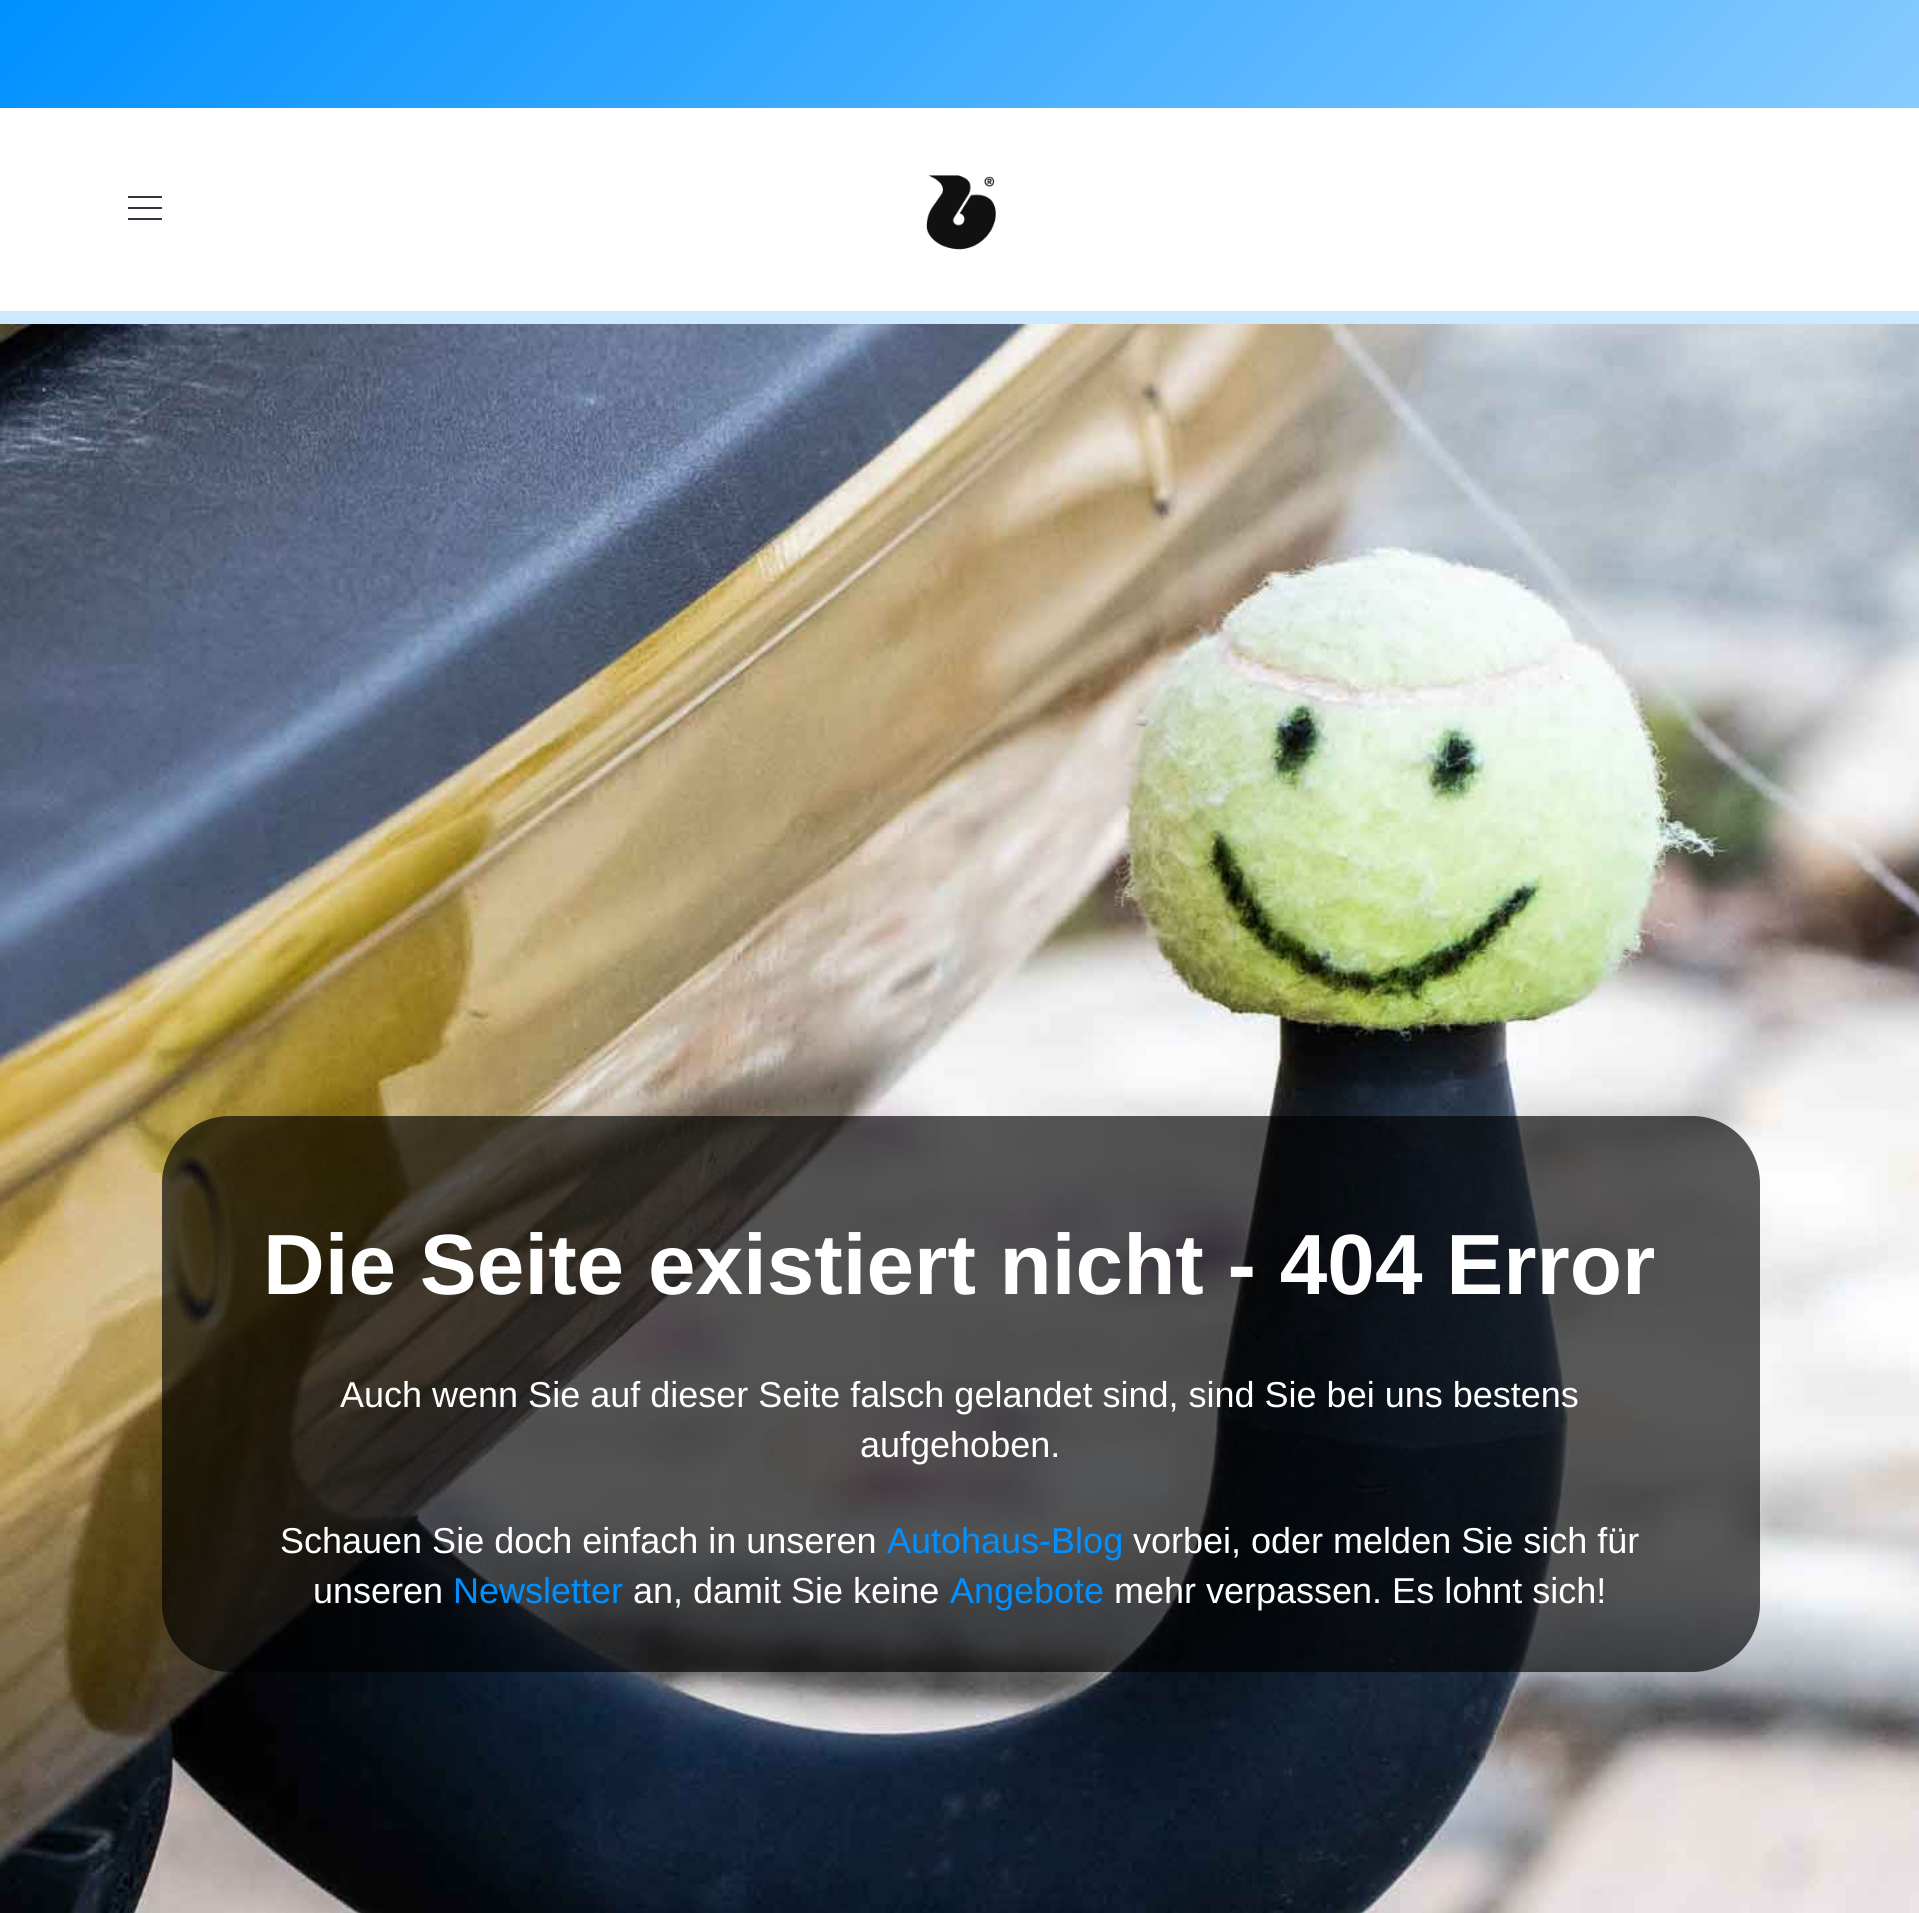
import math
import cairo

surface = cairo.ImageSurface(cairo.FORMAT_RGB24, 1919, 1913)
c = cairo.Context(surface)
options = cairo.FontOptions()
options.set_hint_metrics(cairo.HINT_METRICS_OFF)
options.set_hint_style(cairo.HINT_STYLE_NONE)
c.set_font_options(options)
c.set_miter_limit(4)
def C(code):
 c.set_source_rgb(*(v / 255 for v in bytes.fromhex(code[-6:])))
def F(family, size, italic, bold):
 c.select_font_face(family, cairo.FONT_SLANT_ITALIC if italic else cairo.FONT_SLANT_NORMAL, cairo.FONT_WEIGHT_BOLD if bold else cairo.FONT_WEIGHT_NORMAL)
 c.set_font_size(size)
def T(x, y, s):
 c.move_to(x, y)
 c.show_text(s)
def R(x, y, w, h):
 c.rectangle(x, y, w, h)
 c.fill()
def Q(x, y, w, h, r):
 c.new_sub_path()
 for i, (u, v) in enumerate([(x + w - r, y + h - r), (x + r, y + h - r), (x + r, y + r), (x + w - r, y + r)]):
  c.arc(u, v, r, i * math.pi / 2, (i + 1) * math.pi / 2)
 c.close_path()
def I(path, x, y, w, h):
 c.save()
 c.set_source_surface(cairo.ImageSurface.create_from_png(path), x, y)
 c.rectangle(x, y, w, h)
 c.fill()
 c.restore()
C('ffffff')
c.paint()
C('cce9ff')
R(0,311,1919,13)
gradient = cairo.LinearGradient(453,-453,1466,561)
gradient.add_color_stop_rgba(0,0,0.565,1,1)
gradient.add_color_stop_rgba(1,0.529,0.796,1,1)
c.set_source(gradient)
R(0,0,1919,108)
C('34343c')
R(128,218,34,2)
R(128,196,34,2)
R(128,207,34,2)
I('1.png',926,175,70,75)
I('2.png',0,324,1919,1589)
c.set_source_rgba(0,0,0,0.65)
Q(162,1116,1598,556,68)
c.fill()
F('Liberation Sans',85.5,0,1)
C('ffffff')
T(263,1294,'Die Seite existiert nicht - 404 Error')
F('Liberation Sans',36,0,0)
T(340,1407,'Auch wenn Sie auf dieser Seite falsch gelandet sind, sind Sie bei uns bestens')
T(860,1457,'aufgehoben.')
T(280,1553,'Schauen Sie doch einfach in unseren')
C('0090ff')
T(887,1553,'Autohaus-Blog')
C('ffffff')
T(1133,1553,'vorbei, oder melden Sie sich für')
T(313,1603,'unseren')
C('0090ff')
T(453,1603,'Newsletter')
C('ffffff')
T(633,1603,'an, damit Sie keine')
C('0090ff')
T(950,1603,'Angebote')
C('ffffff')
T(1114,1603,'mehr verpassen. Es lohnt sich!')
surface.write_to_png('o.png')
